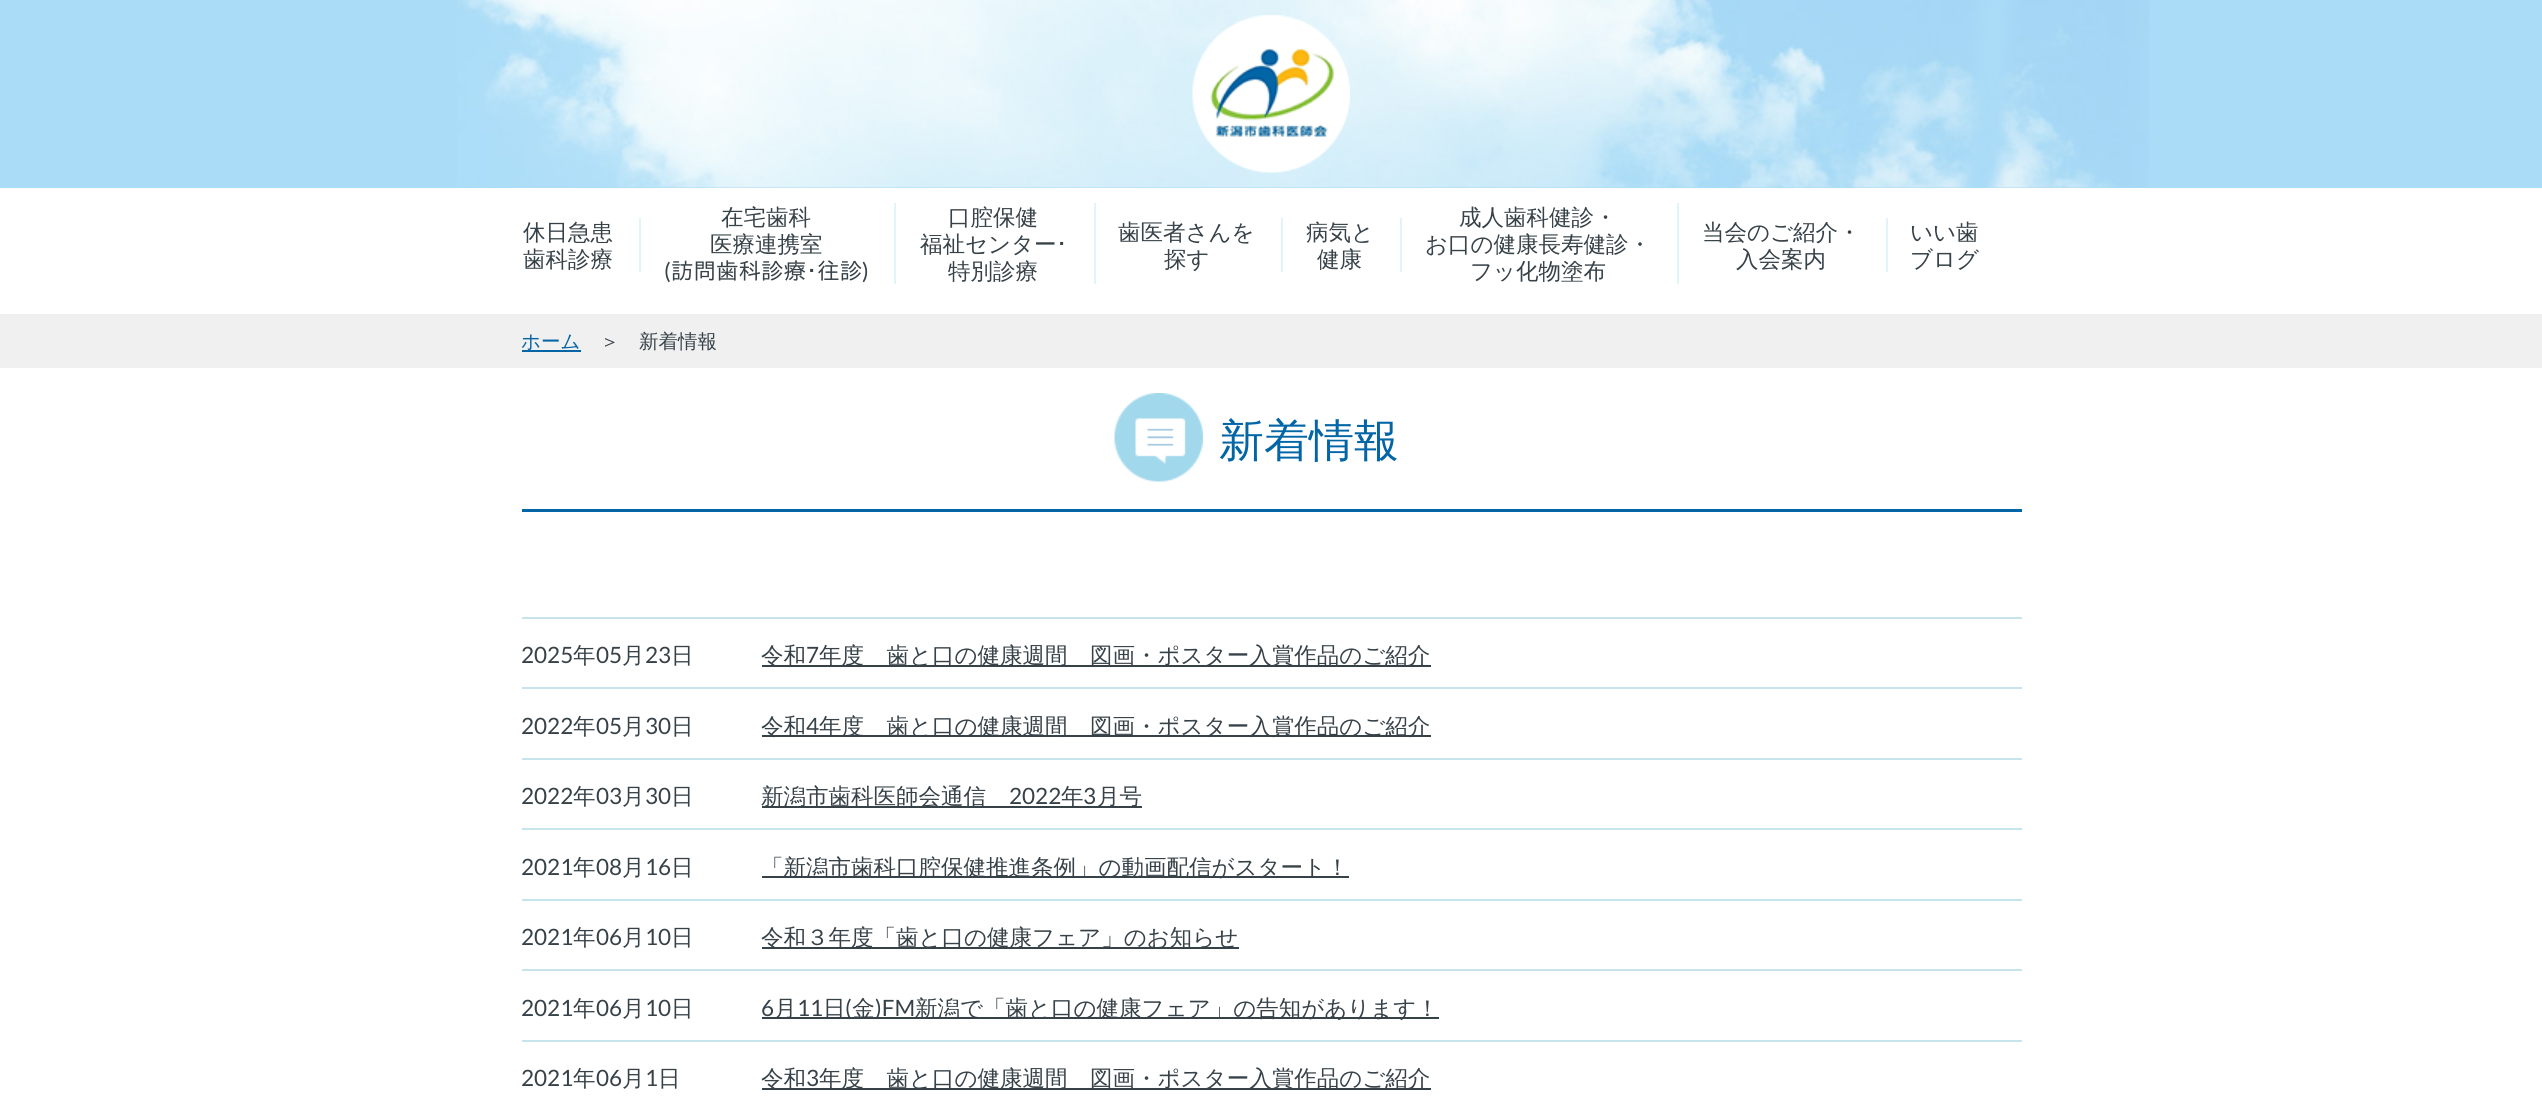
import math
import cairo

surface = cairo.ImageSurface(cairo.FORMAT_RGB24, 2542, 1098)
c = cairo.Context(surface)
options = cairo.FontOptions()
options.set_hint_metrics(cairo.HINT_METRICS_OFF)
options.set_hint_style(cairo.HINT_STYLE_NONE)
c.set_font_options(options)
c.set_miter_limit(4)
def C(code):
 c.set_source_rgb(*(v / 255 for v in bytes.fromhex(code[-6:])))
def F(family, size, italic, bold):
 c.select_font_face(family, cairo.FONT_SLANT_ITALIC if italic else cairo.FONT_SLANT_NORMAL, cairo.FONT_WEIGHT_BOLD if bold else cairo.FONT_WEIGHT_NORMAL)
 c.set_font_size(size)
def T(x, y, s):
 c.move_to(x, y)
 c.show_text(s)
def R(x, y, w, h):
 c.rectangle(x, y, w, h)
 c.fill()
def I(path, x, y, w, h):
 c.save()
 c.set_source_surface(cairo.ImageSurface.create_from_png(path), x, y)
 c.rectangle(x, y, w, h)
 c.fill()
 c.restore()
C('ffffff')
c.paint()
C('aadbf7')
R(0,0,2542,188)
I('1.png',457,0,1692,188)
I('2.png',1192,15,158,158)
C('e2f4f8')
R(639,218,2,54)
F('WenQuanYi Zen Hei Medium',22.5,0,0)
C('364148')
T(523,240,'休日急患')
T(523,267,'歯科診療')
C('e2f4f8')
R(894,203,2,81)
C('364148')
T(721,225,'在宅歯科')
T(710,252,'医療連携室')
F('Lato',22.5,0,0)
T(664,279,'(')
F('IPAPGothic',22.5,0,0)
T(671,279,'訪問歯科診療･往診')
F('Lato',22.5,0,0)
T(862,279,')')
C('e2f4f8')
R(1094,203,2,81)
F('WenQuanYi Zen Hei Medium',22.5,0,0)
C('364148')
T(948,225,'口腔保健')
T(920,252,'福祉センター')
F('IPAPGothic',22.5,0,0)
T(1056,252,'･')
F('WenQuanYi Zen Hei Medium',22.5,0,0)
T(948,279,'特別診療')
C('e2f4f8')
R(1281,218,2,54)
C('364148')
T(1118,240,'歯医者さんを')
T(1164,267,'探す')
C('e2f4f8')
R(1400,218,2,54)
C('364148')
T(1306,240,'病気と')
T(1317,267,'健康')
C('e2f4f8')
R(1677,203,2,81)
C('364148')
T(1459,225,'成人歯科健診・')
T(1425,252,'お口の健康長寿健診・')
T(1470,279,'フッ化物塗布')
C('e2f4f8')
R(1886,218,2,54)
C('364148')
T(1702,240,'当会のご紹介・')
T(1736,267,'入会案内')
T(1910,240,'いい歯')
T(1910,267,'ブログ')
C('f0f0f0')
R(0,314,2542,54)
F('WenQuanYi Zen Hei Medium',19.5,0,0)
C('0265a6')
T(521,348,'ホーム')
R(522,350,59,2)
C('364148')
T(600,348,'＞　新着情報')
C('0265a6')
R(522,509,1500,3)
I('3.png',1114,393,89,89)
F('WenQuanYi Zen Hei Medium',45,0,0)
T(1219,456,'新着情報')
F('Lato',22.5,0,0)
C('364148')
T(521,663,'2025')
F('WenQuanYi Zen Hei Medium',22.5,0,0)
T(573,663,'年')
F('Lato',22.5,0,0)
T(596,663,'05')
F('WenQuanYi Zen Hei Medium',22.5,0,0)
T(622,663,'月')
F('Lato',22.5,0,0)
T(645,663,'23')
F('WenQuanYi Zen Hei Medium',22.5,0,0)
T(671,663,'日')
C('c5e4eb')
R(522,617,1500,2)
C('364148')
R(762,665,669,2)
T(761,663,'令和')
F('Lato',22.5,0,0)
T(806,663,'7')
F('WenQuanYi Zen Hei Medium',22.5,0,0)
T(819,663,'年度　歯と口の健康週間　図画・ポスター入賞作品のご紹介')
F('Lato',22.5,0,0)
T(521,734,'2022')
F('WenQuanYi Zen Hei Medium',22.5,0,0)
T(573,734,'年')
F('Lato',22.5,0,0)
T(596,734,'05')
F('WenQuanYi Zen Hei Medium',22.5,0,0)
T(622,734,'月')
F('Lato',22.5,0,0)
T(645,734,'30')
F('WenQuanYi Zen Hei Medium',22.5,0,0)
T(671,734,'日')
C('c5e4eb')
R(522,687,1500,2)
C('364148')
R(762,735,669,2)
T(761,734,'令和')
F('Lato',22.5,0,0)
T(806,734,'4')
F('WenQuanYi Zen Hei Medium',22.5,0,0)
T(819,734,'年度　歯と口の健康週間　図画・ポスター入賞作品のご紹介')
F('Lato',22.5,0,0)
T(521,804,'2022')
F('WenQuanYi Zen Hei Medium',22.5,0,0)
T(573,804,'年')
F('Lato',22.5,0,0)
T(596,804,'03')
F('WenQuanYi Zen Hei Medium',22.5,0,0)
T(622,804,'月')
F('Lato',22.5,0,0)
T(645,804,'30')
F('WenQuanYi Zen Hei Medium',22.5,0,0)
T(671,804,'日')
C('c5e4eb')
R(522,758,1500,2)
C('364148')
R(762,806,380,2)
T(761,804,'新潟市歯科医師会通信')
F('Lato',22.5,0,0)
T(1009,804,'2022')
F('WenQuanYi Zen Hei Medium',22.5,0,0)
T(1061,804,'年')
F('Lato',22.5,0,0)
T(1083,804,'3')
F('WenQuanYi Zen Hei Medium',22.5,0,0)
T(1097,804,'月号')
F('Lato',22.5,0,0)
T(521,875,'2021')
F('WenQuanYi Zen Hei Medium',22.5,0,0)
T(573,875,'年')
F('Lato',22.5,0,0)
T(596,875,'08')
F('WenQuanYi Zen Hei Medium',22.5,0,0)
T(622,875,'月')
F('Lato',22.5,0,0)
T(645,875,'16')
F('WenQuanYi Zen Hei Medium',22.5,0,0)
T(671,875,'日')
C('c5e4eb')
R(522,828,1500,2)
C('364148')
R(762,876,587,2)
T(761,875,'「新潟市歯科口腔保健推進条例」の動画配信がスタート！')
F('Lato',22.5,0,0)
T(521,945,'2021')
F('WenQuanYi Zen Hei Medium',22.5,0,0)
T(573,945,'年')
F('Lato',22.5,0,0)
T(596,945,'06')
F('WenQuanYi Zen Hei Medium',22.5,0,0)
T(622,945,'月')
F('Lato',22.5,0,0)
T(645,945,'10')
F('WenQuanYi Zen Hei Medium',22.5,0,0)
T(671,945,'日')
C('c5e4eb')
R(522,899,1500,2)
C('364148')
R(762,947,477,2)
T(761,945,'令和３年度「歯と口の健康フェア」のお知らせ')
F('Lato',22.5,0,0)
T(521,1016,'2021')
F('WenQuanYi Zen Hei Medium',22.5,0,0)
T(573,1016,'年')
F('Lato',22.5,0,0)
T(596,1016,'06')
F('WenQuanYi Zen Hei Medium',22.5,0,0)
T(622,1016,'月')
F('Lato',22.5,0,0)
T(645,1016,'10')
F('WenQuanYi Zen Hei Medium',22.5,0,0)
T(671,1016,'日')
C('c5e4eb')
R(522,969,1500,2)
C('364148')
R(762,1017,677,2)
T(774,1016,'月')
T(823,1016,'日 金')
T(915,1016,'新潟で「歯と口の健康フェア」の告知があります！')
F('Lato',22.5,0,0)
T(761,1016,'6')
T(797,1016,'11')
T(845,1016,'(')
T(875,1016,')FM')
T(521,1086,'2021')
F('WenQuanYi Zen Hei Medium',22.5,0,0)
T(573,1086,'年')
F('Lato',22.5,0,0)
T(596,1086,'06')
F('WenQuanYi Zen Hei Medium',22.5,0,0)
T(622,1086,'月')
F('Lato',22.5,0,0)
T(645,1086,'1')
F('WenQuanYi Zen Hei Medium',22.5,0,0)
T(658,1086,'日')
C('c5e4eb')
R(522,1040,1500,2)
C('364148')
R(762,1088,669,2)
T(761,1086,'令和')
F('Lato',22.5,0,0)
T(806,1086,'3')
F('WenQuanYi Zen Hei Medium',22.5,0,0)
T(819,1086,'年度　歯と口の健康週間　図画・ポスター入賞作品のご紹介')
surface.write_to_png('o.png')
